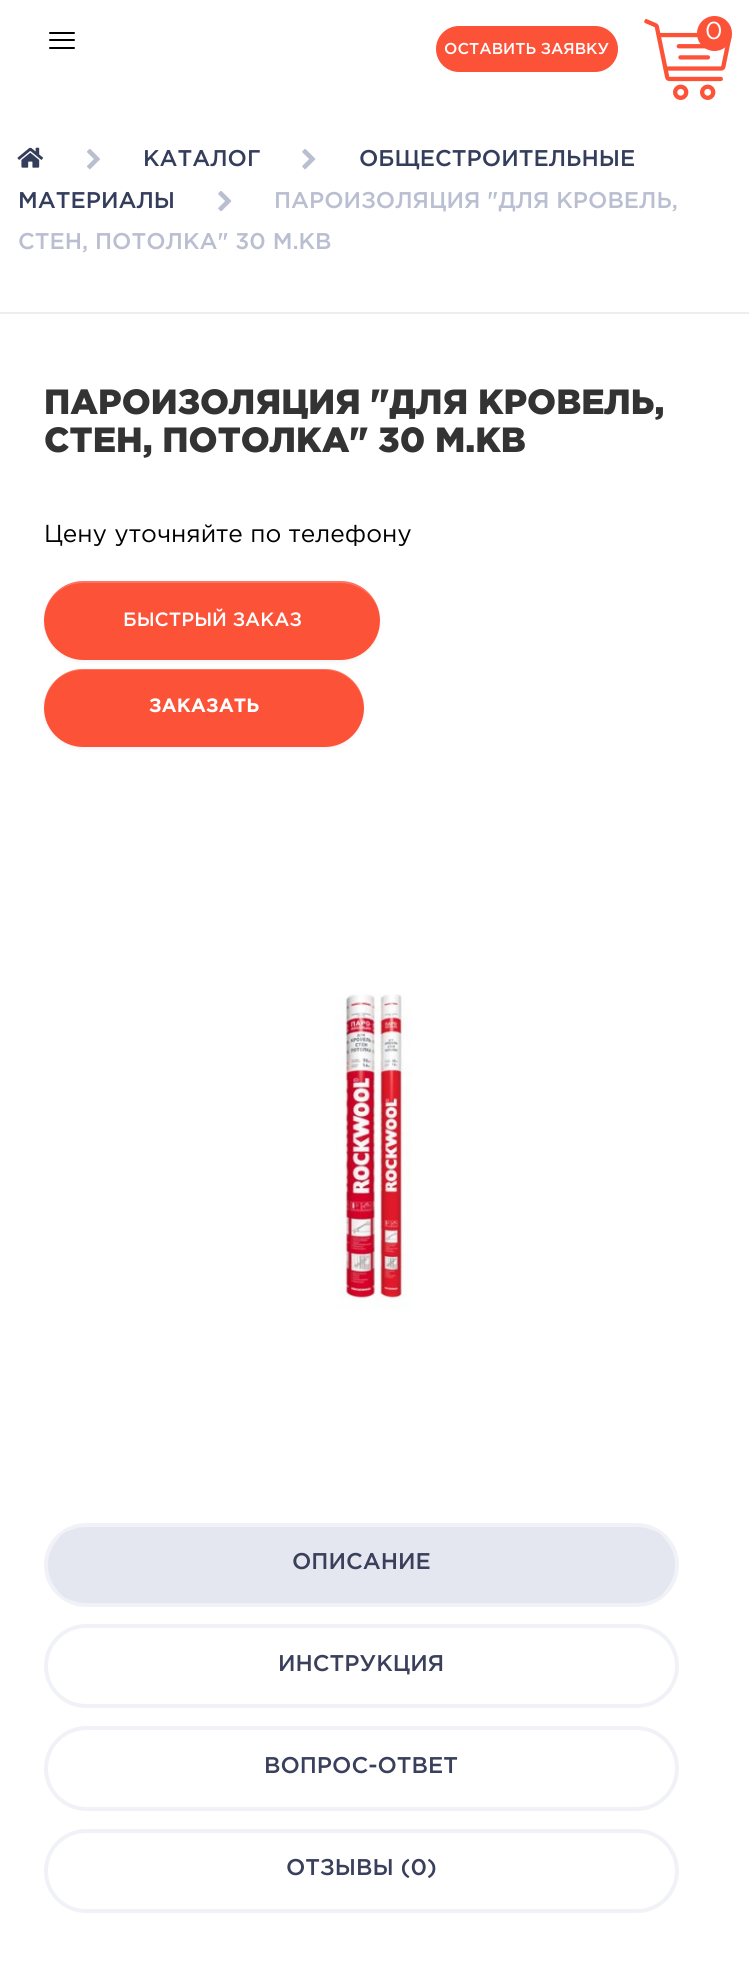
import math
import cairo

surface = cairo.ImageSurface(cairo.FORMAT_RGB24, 749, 1988)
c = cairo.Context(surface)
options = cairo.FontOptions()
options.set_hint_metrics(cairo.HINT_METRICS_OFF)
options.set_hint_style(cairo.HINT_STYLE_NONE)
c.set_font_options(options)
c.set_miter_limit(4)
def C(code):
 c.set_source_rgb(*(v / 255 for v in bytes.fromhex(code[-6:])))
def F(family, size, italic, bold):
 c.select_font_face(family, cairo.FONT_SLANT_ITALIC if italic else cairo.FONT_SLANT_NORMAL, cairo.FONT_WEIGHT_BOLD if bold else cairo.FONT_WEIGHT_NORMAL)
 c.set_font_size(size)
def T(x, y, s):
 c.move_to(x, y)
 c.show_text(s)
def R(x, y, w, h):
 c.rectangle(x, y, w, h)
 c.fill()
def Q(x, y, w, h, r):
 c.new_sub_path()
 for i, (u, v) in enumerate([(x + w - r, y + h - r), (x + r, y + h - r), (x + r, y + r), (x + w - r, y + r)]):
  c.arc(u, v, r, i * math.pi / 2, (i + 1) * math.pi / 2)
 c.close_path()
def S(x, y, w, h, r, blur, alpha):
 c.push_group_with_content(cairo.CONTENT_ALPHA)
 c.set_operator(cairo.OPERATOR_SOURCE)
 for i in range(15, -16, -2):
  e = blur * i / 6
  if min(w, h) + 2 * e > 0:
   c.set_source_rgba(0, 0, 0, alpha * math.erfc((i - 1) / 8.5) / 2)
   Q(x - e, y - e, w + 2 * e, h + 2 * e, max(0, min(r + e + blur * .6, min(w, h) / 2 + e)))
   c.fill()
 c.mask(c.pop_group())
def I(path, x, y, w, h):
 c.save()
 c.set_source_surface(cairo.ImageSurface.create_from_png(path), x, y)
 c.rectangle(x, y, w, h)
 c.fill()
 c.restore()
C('ffffff')
c.paint()
C('000000')
Q(49,32,26,2,1)
c.fill()
Q(49,39,26,2,1)
c.fill()
Q(49,47,26,2,1)
c.fill()
C('fc5238')
Q(436,26,182,46,23)
c.fill()
F('Gotham Medium',15.75,0,0)
C('ffffff')
T(444,54,'ОСТАВИТЬ ЗАЯВКУ')
I('1.png',644,19,88,81)
C('fc5238')
c.arc(714.5,33.5,17.5,0,2 * math.pi)
c.fill()
F('Gotham',24.5,0,0)
C('ffffff')
T(705,39,'0')
I('2.png',17,147,26,21)
I('3.png',87,148,13,22)
F('Gotham Medium',22.75,0,0)
C('343e5c')
T(359,166,'ОБЩЕСТРОИТЕЛЬНЫЕ')
T(18,208,'МАТЕРИАЛЫ')
I('4.png',218,191,14,21)
T(143,166,'КАТАЛОГ')
I('4.png',302,149,14,21)
C('b9bed1')
T(274,208,'ПАРОИЗОЛЯЦИЯ "ДЛЯ КРОВЕЛЬ,')
T(18,249,'СТЕН, ПОТОЛКА" 30 М.КВ')
C('eeeeee')
R(0,312,749,2)
F('Gotham Black',35,0,0)
C('333333')
T(44,414,'ПАРОИЗОЛЯЦИЯ "ДЛЯ КРОВЕЛЬ,')
T(44,452,'СТЕН, ПОТОЛКА" 30 М.КВ')
F('Gotham',24.5,0,0)
C('000000')
T(44,542,'Цену уточняйте по телефону')
C('000000')
S(44,583,336,79,39.5,2,.05)
C('fc5238')
Q(44,581,336,79,39.5)
c.fill()
c.set_source_rgba(1,1,1,0.2)
c.new_path()
c.move_to(83,583)
c.line_to(340,583)
c.curve_to(362,583,380,600,380,621)
c.line_to(380,620)
c.curve_to(380,599,362,581,340,581)
c.line_to(84,581)
c.curve_to(62,581,44,599,44,620)
c.line_to(44,621)
c.curve_to(44,600,61,583,83,583)
c.close_path()
c.fill()
F('Gotham Medium',19.25,0,0)
C('ffffff')
T(123,626,'БЫСТРЫЙ ЗАКАЗ')
C('000000')
S(44,670,320,79,39.5,2,.05)
C('fc5238')
Q(44,669,320,78,39)
c.fill()
c.set_source_rgba(1,1,1,0.2)
c.new_path()
c.move_to(83,670)
c.line_to(325,670)
c.curve_to(346,670,363,687,364,709)
c.line_to(364,708)
c.curve_to(364,686,347,669,325,669)
c.line_to(83,669)
c.curve_to(61,669,44,686,44,708)
c.line_to(44,709)
c.curve_to(45,687,61,670,83,670)
c.close_path()
c.fill()
F('Gotham',19.25,0,1)
C('ffffff')
T(149,712,'ЗАКАЗАТЬ')
I('5.png',334,994,78,316)
C('e4e7f0')
Q(46,1525,631,80,40)
c.fill_preserve()
C('f0f2f7')
c.set_line_width(4)
c.stroke()
C('e4e7f0')
Q(56,1530,611,70,18)
c.fill()
F('Gotham Medium',22.75,0,0)
C('3a405b')
T(292,1569,'ОПИСАНИЕ')
Q(46,1626,631,80,40)
C('f0f2f7')
c.stroke()
C('3a405b')
T(278,1671,'ИНСТРУКЦИЯ')
Q(46,1728,631,81,40.5)
C('f0f2f7')
c.stroke()
C('3a405b')
T(264,1773,'ВОПРОС-ОТВЕТ')
Q(46,1831,631,80,40)
C('f0f2f7')
c.stroke()
C('3a405b')
T(286,1875,'ОТЗЫВЫ (0)')
surface.write_to_png('o.png')
